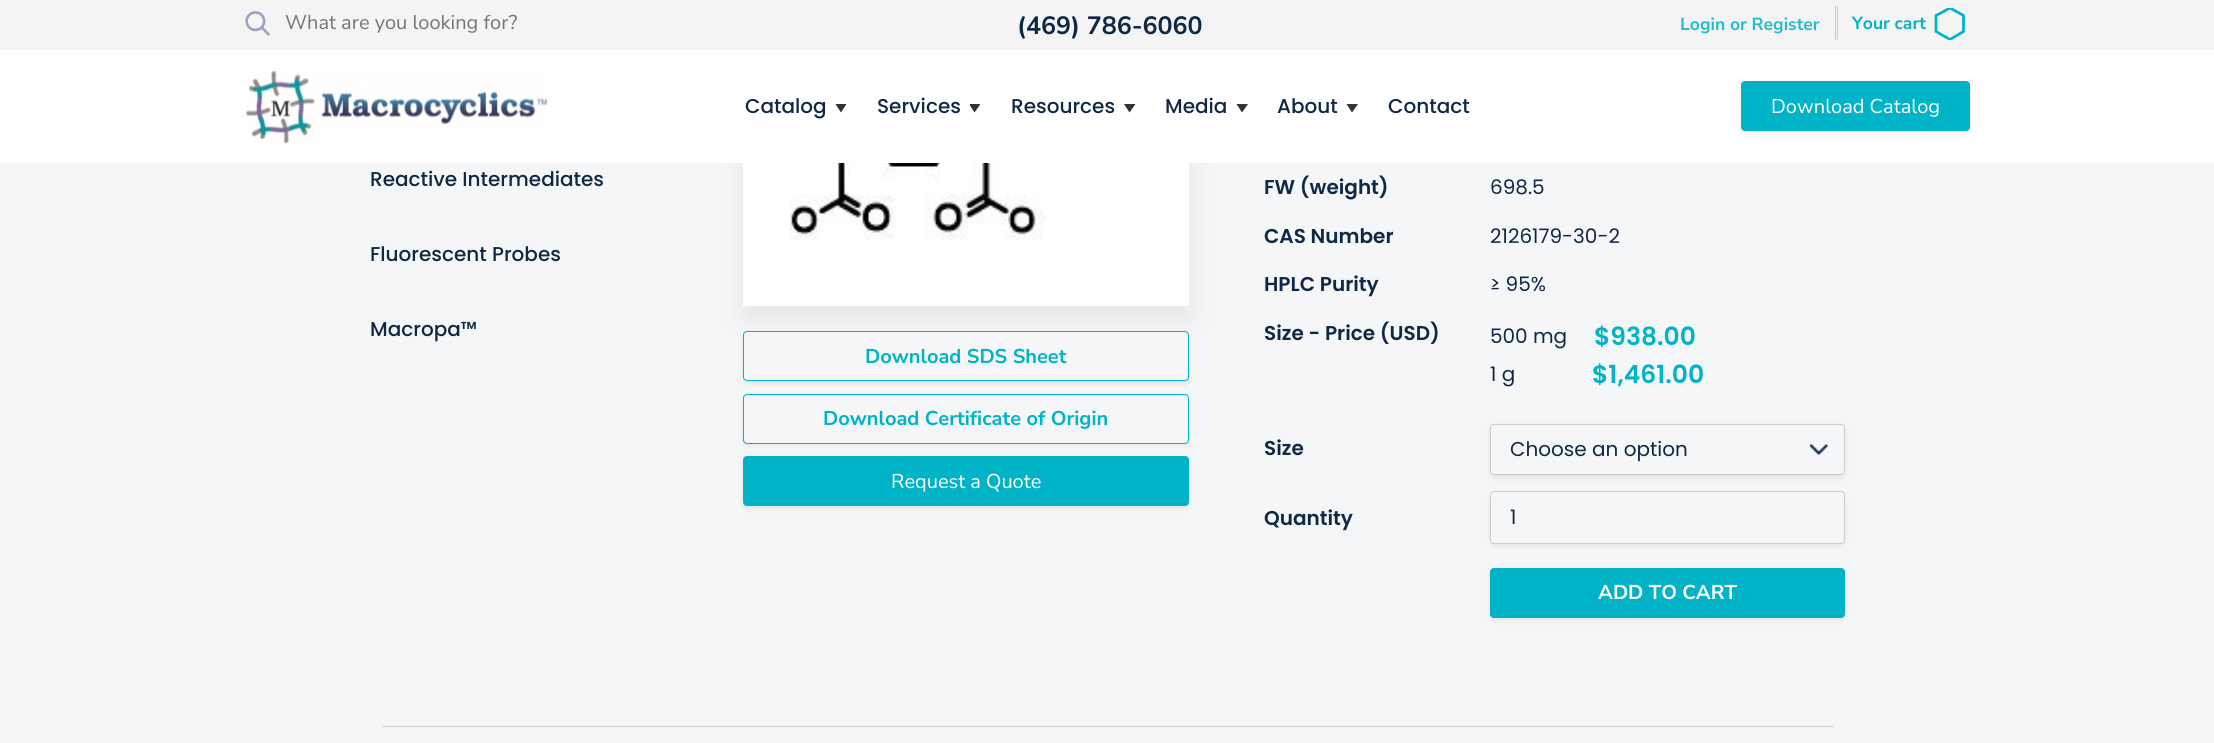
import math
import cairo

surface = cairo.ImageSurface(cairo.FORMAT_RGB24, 2214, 743)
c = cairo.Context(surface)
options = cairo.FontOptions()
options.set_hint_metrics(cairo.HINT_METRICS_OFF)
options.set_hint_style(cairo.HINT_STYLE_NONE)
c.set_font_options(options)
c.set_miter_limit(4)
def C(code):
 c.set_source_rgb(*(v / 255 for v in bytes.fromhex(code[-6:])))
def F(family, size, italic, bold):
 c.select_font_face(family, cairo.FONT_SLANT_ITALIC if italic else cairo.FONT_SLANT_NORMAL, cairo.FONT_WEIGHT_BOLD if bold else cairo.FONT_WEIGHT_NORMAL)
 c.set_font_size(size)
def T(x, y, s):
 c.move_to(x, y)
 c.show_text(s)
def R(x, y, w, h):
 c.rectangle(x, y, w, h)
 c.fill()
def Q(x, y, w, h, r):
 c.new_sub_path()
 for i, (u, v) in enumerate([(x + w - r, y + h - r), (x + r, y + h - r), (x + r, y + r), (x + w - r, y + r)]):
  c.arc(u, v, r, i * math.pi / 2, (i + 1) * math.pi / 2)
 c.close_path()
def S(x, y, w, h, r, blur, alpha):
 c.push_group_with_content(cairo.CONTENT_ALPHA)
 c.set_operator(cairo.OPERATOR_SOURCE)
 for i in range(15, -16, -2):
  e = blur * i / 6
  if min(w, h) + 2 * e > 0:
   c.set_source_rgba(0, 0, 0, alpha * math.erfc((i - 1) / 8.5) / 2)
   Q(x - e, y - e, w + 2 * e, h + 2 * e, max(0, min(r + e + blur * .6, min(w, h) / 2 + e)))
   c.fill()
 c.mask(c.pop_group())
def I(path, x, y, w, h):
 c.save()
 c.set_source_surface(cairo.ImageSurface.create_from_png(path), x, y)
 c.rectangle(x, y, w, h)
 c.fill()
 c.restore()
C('f5f6f7')
c.paint()
C('000000')
S(743,-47,446,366,0,15.5,.07)
C('ffffff')
R(0,50,2214,113)
C('f4f4f4')
R(0,0,2214,50)
I('1.png',245,11,25,25)
F('Nunito Sans',20,0,0)
C('757575')
T(285,29,'What are you looking for?')
F('Nunito Sans',25,0,1)
C('0f2846')
T(1017,34,'(469) 786-6060')
F('Nunito Sans',17.5,0,1)
C('21bcce')
T(1680,30,'Login or Register')
C('cacfd5')
R(1837,6,1,34)
C('cacaca')
R(1835,6,3,1)
C('f1f1f1')
R(1836,6,1,34)
R(1835,39,3,1)
C('cacaca')
R(1835,6,1,34)
C('00b3c7')
T(1852,29,'Your cart')
c.save()
c.rectangle(1934,8,32,32)
c.clip()
c.new_path()
c.move_to(1936,15.5)
c.line_to(1950,8)
c.line_to(1963.5,15.5)
c.line_to(1963.5,31.5)
c.line_to(1950,39.5)
c.line_to(1936,31.5)
c.close_path()
c.set_line_width(2.7)
c.stroke()
c.restore()
I('2.png',246,70,302,74)
C('333333')
c.set_fill_rule(cairo.FILL_RULE_EVEN_ODD)
c.new_path()
c.move_to(841,112.5)
c.line_to(846.5,104)
c.line_to(835.5,104)
c.close_path()
c.fill()
F('Poppins Medium',20,0,0)
C('0f2846')
T(745,113,'Catalog')
c.save()
c.set_fill_rule(cairo.FILL_RULE_WINDING)
c.rectangle(970,104,10,9)
c.clip()
C('333333')
c.set_fill_rule(cairo.FILL_RULE_EVEN_ODD)
c.new_path()
c.move_to(974.5,112.5)
c.line_to(980.5,104)
c.line_to(969,104)
c.close_path()
c.fill()
c.restore()
T(877,113,'Services')
C('333333')
c.new_path()
c.move_to(1129.5,112.5)
c.line_to(1135.5,104)
c.line_to(1124,104)
c.close_path()
c.fill()
C('0f2846')
T(1011,113,'Resources')
C('333333')
c.new_path()
c.move_to(1242,112.5)
c.line_to(1248,104)
c.line_to(1236.5,104)
c.close_path()
c.fill()
C('0f2846')
T(1165,113,'Media')
C('333333')
c.new_path()
c.move_to(1352,112.5)
c.line_to(1358,104)
c.line_to(1346.5,104)
c.close_path()
c.fill()
C('0f2846')
T(1277,113,'About')
T(1388,113,'Contact')
C('000000')
S(1741,84,229,50,4,3,.07)
C('00b3c7')
Q(1741,81,229,50,4)
c.fill()
F('Nunito Sans',20,0,0)
C('ffffff')
T(1771,113,'Download Catalog')
F('Poppins Medium',20,0,0)
C('0f2846')
T(370,186,'Reactive Intermediates')
T(370,261,'Fluorescent Probes')
T(370,336,'Macropa™')
C('ffffff')
R(743,163,446,143)
I('3.png',790,163,351,77)
C('000000')
S(743,334,446,50,4,3,.07)
C('f5f6f7')
Q(743.5,331.5,445,49,3.5)
c.fill_preserve()
C('00b3c7')
c.set_line_width(1)
c.stroke()
F('Nunito Sans',20,0,1)
T(865,363,'Download SDS Sheet')
C('000000')
S(743,396,446,50,4,3,.07)
C('f5f6f7')
Q(743.5,394.5,445,49,3.5)
c.fill_preserve()
C('00b3c7')
c.stroke()
T(823,425,'Download Certificate of Origin')
C('000000')
S(743,459,446,50,4,3,.07)
C('00b3c7')
Q(743,456,446,50,4)
c.fill()
F('Nunito Sans',20,0,0)
C('ffffff')
T(891,488,'Request a Quote')
F('Poppins SemiBold',20,0,0)
C('0f2846')
T(1264,194,'FW (weight)')
F('Poppins',20,0,0)
T(1490,194,'698.5')
F('Poppins SemiBold',20,0,0)
T(1264,243,'CAS Number')
F('Poppins',20,0,0)
T(1490,243,'2126179-30-2')
F('Poppins SemiBold',20,0,0)
T(1264,291,'HPLC Purity')
F('Poppins',20,0,0)
T(1490,291,'≥ 95%')
F('Poppins SemiBold',20,0,0)
T(1264,340,'Size - Price (USD)')
F('Poppins',20,0,0)
T(1490,343,'500 mg')
F('Poppins SemiBold',25,0,0)
C('00b3c7')
T(1594,345,'$938.00')
F('Poppins',20,0,0)
C('0f2846')
T(1490,381,'1 g')
F('Poppins SemiBold',25,0,0)
C('00b3c7')
T(1592,383,'$1,461.00')
F('Poppins SemiBold',20,0,0)
C('0f2846')
T(1264,455,'Size')
T(1264,525,'Quantity')
c.save()
c.new_path()
c.move_to(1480,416)
c.line_to(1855,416)
c.line_to(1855,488)
c.line_to(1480,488)
c.close_path()
c.move_to(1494,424)
c.line_to(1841,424)
c.curve_to(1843,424,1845,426,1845,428)
c.line_to(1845,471)
c.curve_to(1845,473,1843,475,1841,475)
c.line_to(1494,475)
c.curve_to(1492,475,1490,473,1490,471)
c.line_to(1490,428)
c.curve_to(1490,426,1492,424,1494,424)
c.close_path()
c.clip()
C('000000')
S(1490,426,355,52,4,3,.07)
c.restore()
I('4.png',1810,444,18,11)
Q(1490.5,424.5,354,50,3.5)
C('cacaca')
c.stroke()
F('Poppins',20,0,0)
C('0f2846')
T(1510,456,'Choose an option')
c.save()
c.new_path()
c.move_to(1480,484)
c.line_to(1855,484)
c.line_to(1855,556)
c.line_to(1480,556)
c.close_path()
c.move_to(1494,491)
c.line_to(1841,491)
c.curve_to(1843,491,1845,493,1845,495)
c.line_to(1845,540)
c.curve_to(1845,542,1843,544,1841,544)
c.line_to(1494,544)
c.curve_to(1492,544,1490,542,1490,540)
c.line_to(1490,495)
c.curve_to(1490,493,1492,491,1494,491)
c.close_path()
c.clip()
C('000000')
S(1490,494,355,52,4,3,.07)
c.restore()
Q(1490.5,491.5,354,52,3.5)
C('cacaca')
c.stroke()
C('0f2846')
T(1510,524,'1')
C('000000')
S(1490,570,355,50,4,3,.07)
C('00b3c7')
Q(1490,568,355,50,4)
c.fill()
F('Nunito Sans',20,0,1)
C('ffffff')
T(1598,599,'ADD TO CART')
C('cacaca')
R(383,726,1450,1)
surface.write_to_png('o.png')
